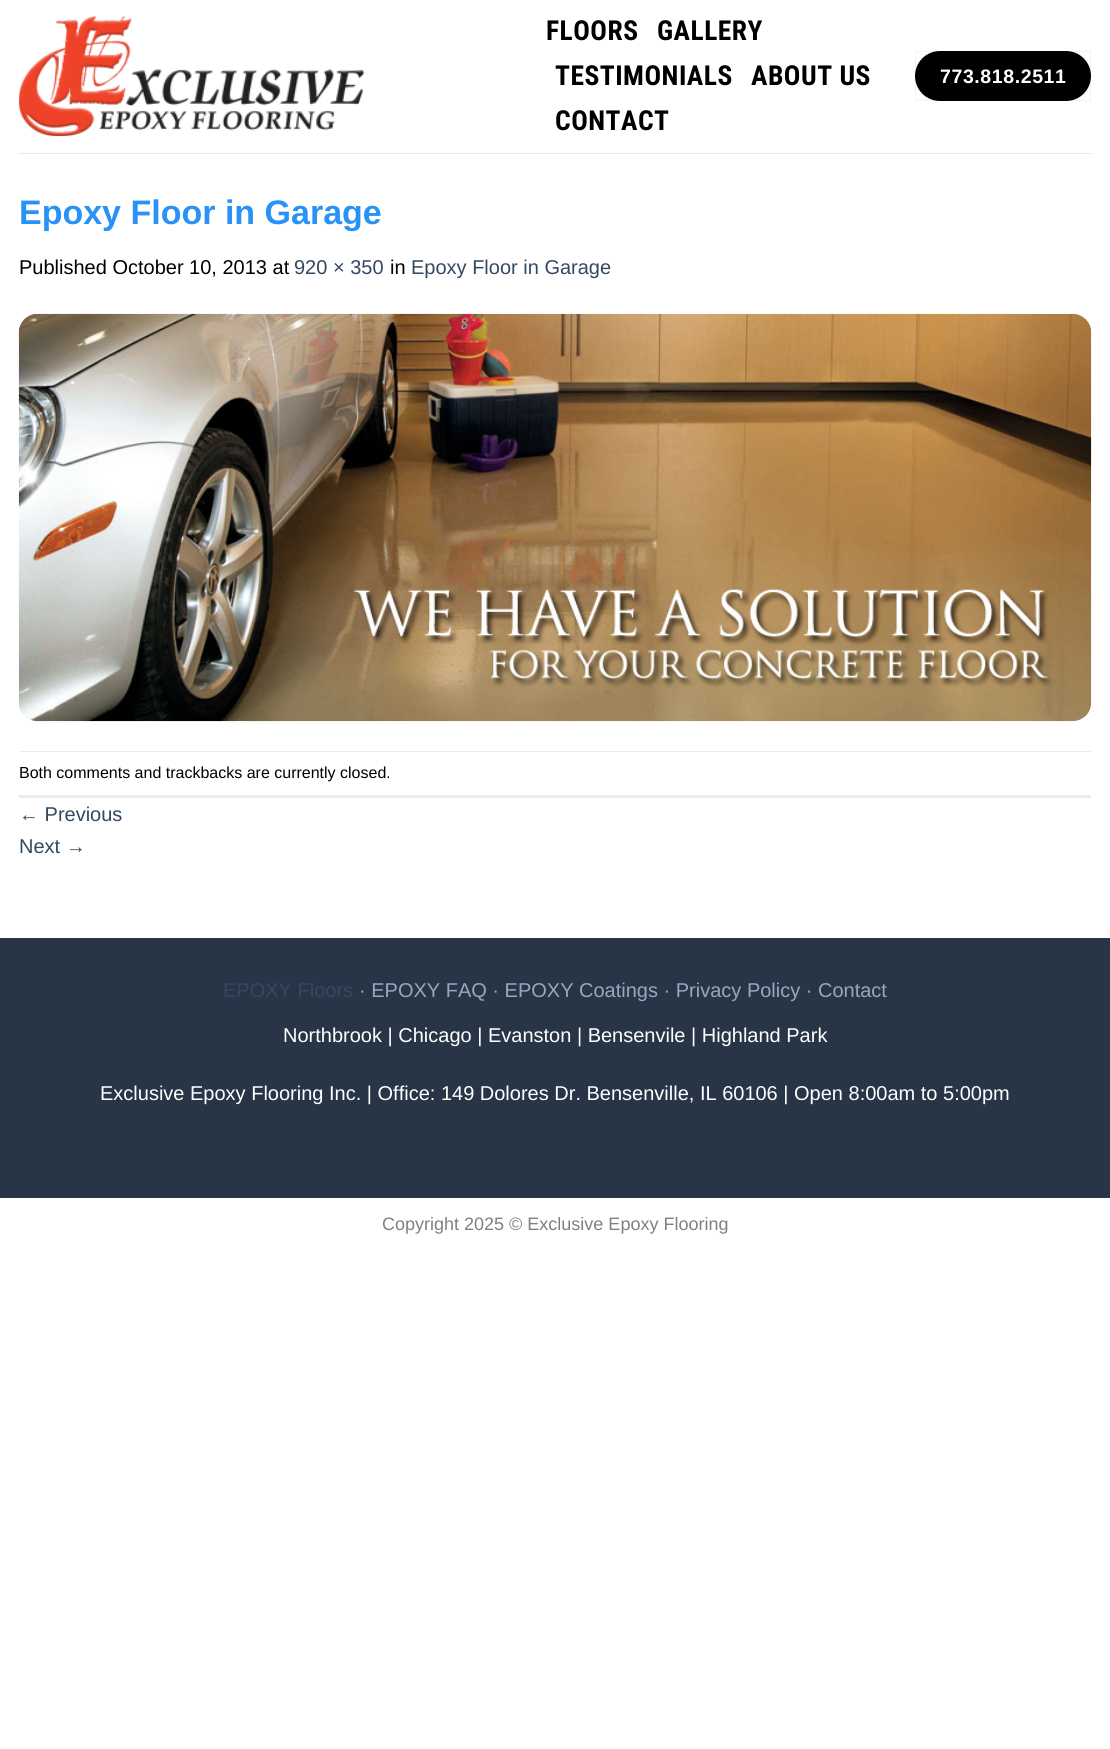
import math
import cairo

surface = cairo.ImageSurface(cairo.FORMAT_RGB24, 1110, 1749)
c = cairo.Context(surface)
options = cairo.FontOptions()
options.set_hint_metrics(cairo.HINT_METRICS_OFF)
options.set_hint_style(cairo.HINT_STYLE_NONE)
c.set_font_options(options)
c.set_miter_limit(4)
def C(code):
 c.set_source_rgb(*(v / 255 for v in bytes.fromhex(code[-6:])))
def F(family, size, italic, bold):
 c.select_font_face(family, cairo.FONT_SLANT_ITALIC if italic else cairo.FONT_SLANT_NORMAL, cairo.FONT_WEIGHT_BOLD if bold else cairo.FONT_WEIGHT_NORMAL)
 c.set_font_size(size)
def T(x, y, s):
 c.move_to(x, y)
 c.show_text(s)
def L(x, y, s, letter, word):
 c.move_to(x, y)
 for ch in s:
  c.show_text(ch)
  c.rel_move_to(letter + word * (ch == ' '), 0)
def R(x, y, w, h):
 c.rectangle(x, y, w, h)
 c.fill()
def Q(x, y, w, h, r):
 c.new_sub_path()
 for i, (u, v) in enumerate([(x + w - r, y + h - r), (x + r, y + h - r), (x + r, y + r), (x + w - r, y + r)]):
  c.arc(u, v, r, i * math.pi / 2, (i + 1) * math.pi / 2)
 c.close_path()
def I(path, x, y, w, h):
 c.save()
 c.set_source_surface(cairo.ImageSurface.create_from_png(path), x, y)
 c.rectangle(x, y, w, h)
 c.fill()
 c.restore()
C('ffffff')
c.paint()
I('1.png',18,16,346,121)
F('Roboto Condensed',27.5,0,1)
C('000000')
L(546,40,'FLOORS',.5,0)
L(657,40,'GALLERY',.5,0)
L(555,85,'TESTIMONIALS',.5,0)
L(751,85,'ABOUT US',.5,0)
L(555,130,'CONTACT',.5,0)
Q(915,51,176,50,25)
c.fill()
c.rectangle(915.5,51.5,175,49)
c.set_source_rgba(0,0,0,0.05)
c.set_line_width(1)
c.stroke()
F('Liberation Sans',19.5,0,1)
C('ffffff')
L(940,83,'773.818.2511',.6,0)
C('e6e6e6')
R(19,153,1072,1)
F('Liberation Sans',34,0,1)
C('2892f6')
T(19,224,'Epoxy Floor in Garage')
F('Liberation Sans',20,0,0)
C('000000')
T(19,274,'Published October 10, 2013 at')
C('334862')
T(294,274,'920 × 350')
C('000000')
T(390,274,'in')
C('334862')
T(411,274,'Epoxy Floor in Garage')
I('2.png',18,313,1074,409)
C('ececec')
R(19,751,1072,1)
R(19,795,1072,3)
F('Liberation Sans',16,0,0)
C('000000')
T(19,778,'Both comments and trackbacks are currently closed.')
F('Liberation Sans',20,0,0)
C('334862')
T(19,821,'← Previous')
T(19,853,'Next →')
C('273546')
R(0,938,1110,260)
C('334862')
T(223,997,'EPOXY Floors')
C('97a7c0')
T(359,997,'· EPOXY FAQ · EPOXY Coatings · Privacy Policy · Contact')
C('ffffff')
T(283,1042,'Northbrook | Chicago | Evanston | Bensenvile | Highland Park')
T(100,1100,'Exclusive Epoxy Flooring Inc. | Office: 149 Dolores Dr. Bensenville, IL 60106 | Open 8:00am to 5:00pm')
F('Liberation Sans',18,0,0)
C('808080')
T(382,1230,'Copyright 2025 © Exclusive Epoxy Flooring')
surface.write_to_png('o.png')
